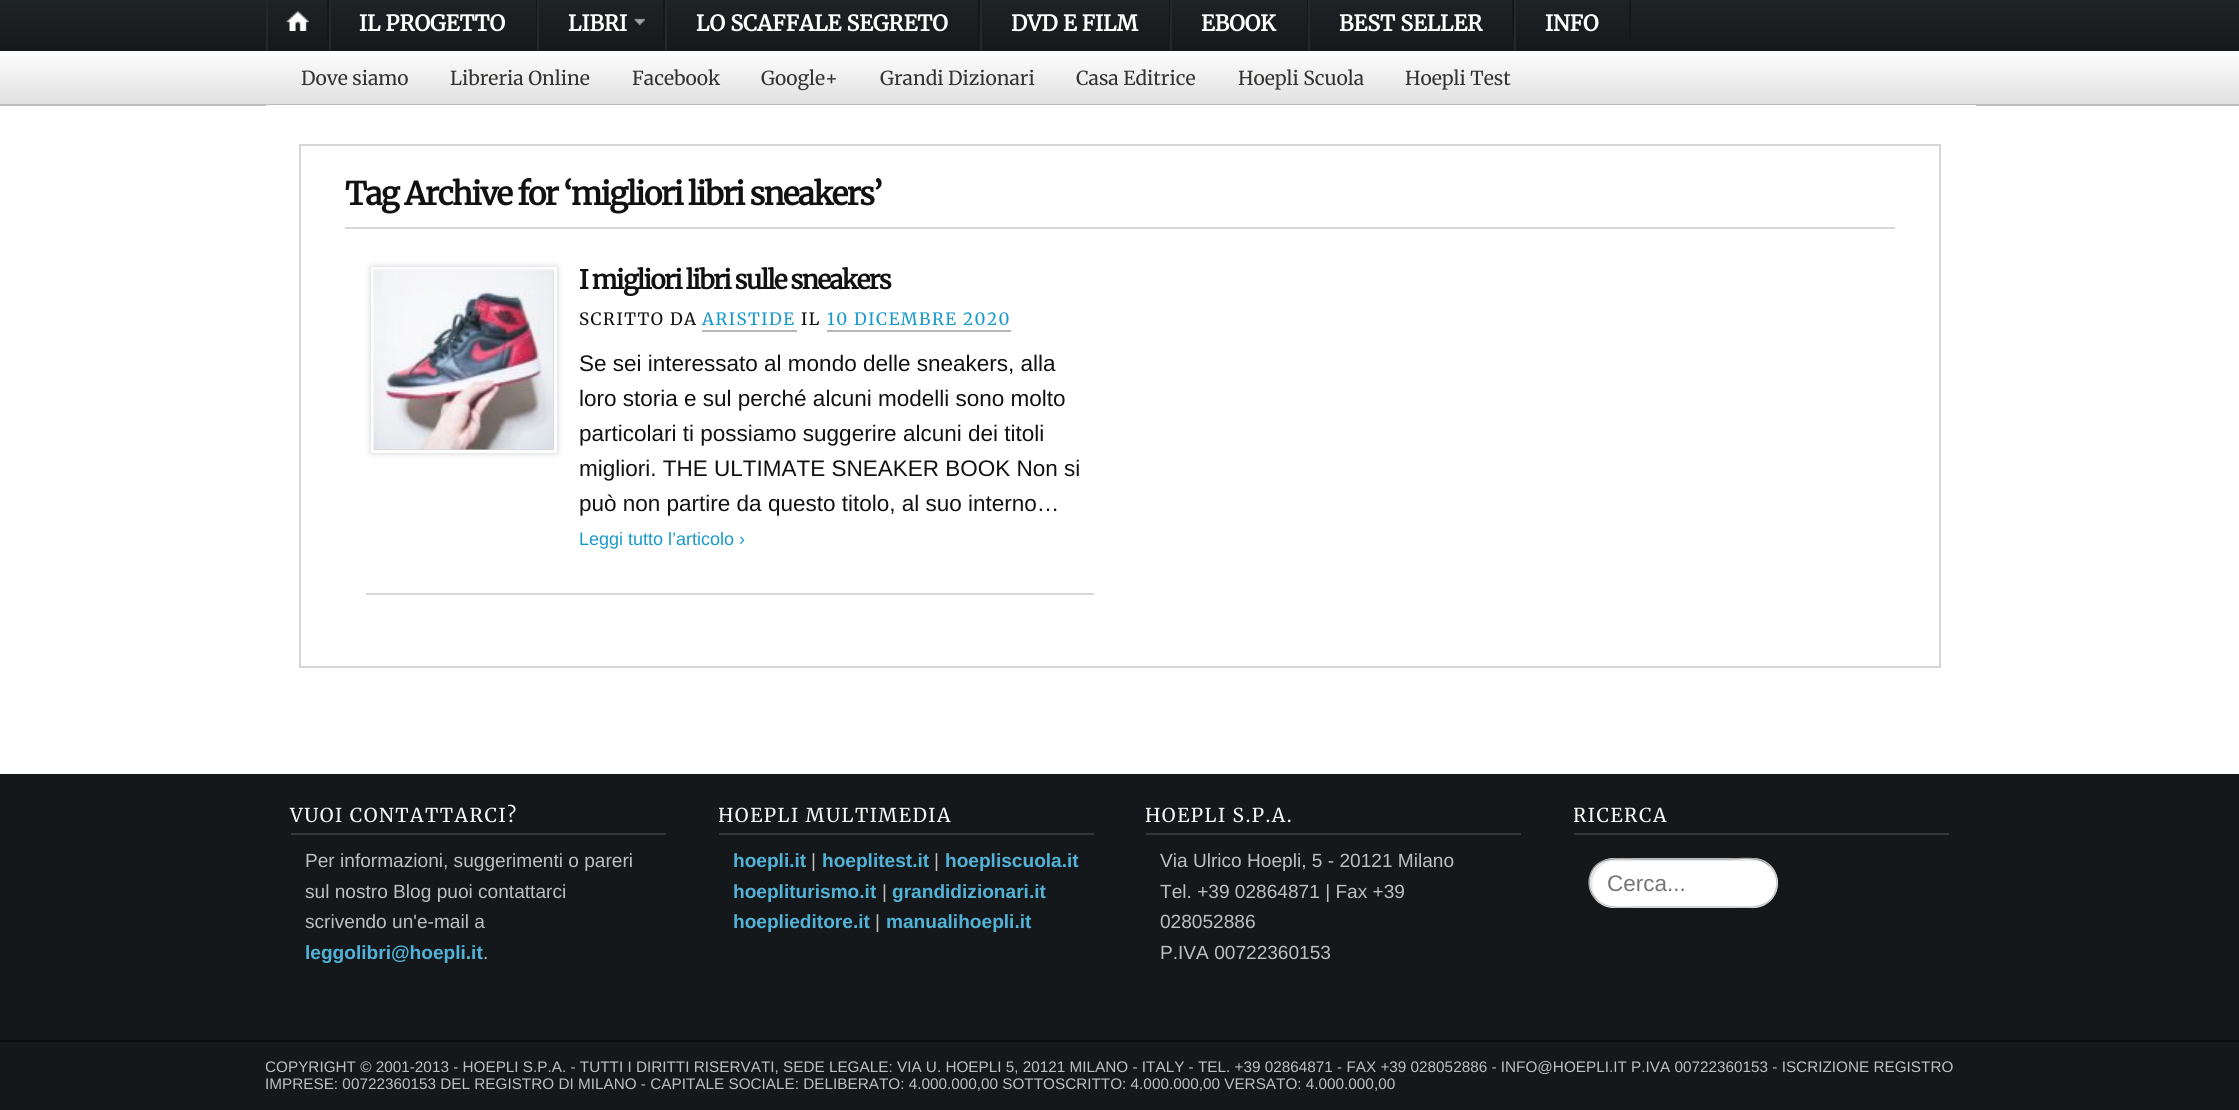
import math
import cairo

surface = cairo.ImageSurface(cairo.FORMAT_RGB24, 2239, 1110)
c = cairo.Context(surface)
options = cairo.FontOptions()
options.set_hint_metrics(cairo.HINT_METRICS_OFF)
options.set_hint_style(cairo.HINT_STYLE_NONE)
c.set_font_options(options)
c.set_miter_limit(4)
def C(code):
 c.set_source_rgb(*(v / 255 for v in bytes.fromhex(code[-6:])))
def F(family, size, italic, bold):
 c.select_font_face(family, cairo.FONT_SLANT_ITALIC if italic else cairo.FONT_SLANT_NORMAL, cairo.FONT_WEIGHT_BOLD if bold else cairo.FONT_WEIGHT_NORMAL)
 c.set_font_size(size)
def T(x, y, s):
 c.move_to(x, y)
 c.show_text(s)
def L(x, y, s, letter, word):
 c.move_to(x, y)
 for ch in s:
  c.show_text(ch)
  c.rel_move_to(letter + word * (ch == ' '), 0)
def R(x, y, w, h):
 c.rectangle(x, y, w, h)
 c.fill()
def Q(x, y, w, h, r):
 c.new_sub_path()
 for i, (u, v) in enumerate([(x + w - r, y + h - r), (x + r, y + h - r), (x + r, y + r), (x + w - r, y + r)]):
  c.arc(u, v, r, i * math.pi / 2, (i + 1) * math.pi / 2)
 c.close_path()
def S(x, y, w, h, r, blur, alpha):
 c.push_group_with_content(cairo.CONTENT_ALPHA)
 c.set_operator(cairo.OPERATOR_SOURCE)
 for i in range(15, -16, -2):
  e = blur * i / 6
  if min(w, h) + 2 * e > 0:
   c.set_source_rgba(0, 0, 0, alpha * math.erfc((i - 1) / 8.5) / 2)
   Q(x - e, y - e, w + 2 * e, h + 2 * e, max(0, min(r + e + blur * .6, min(w, h) / 2 + e)))
   c.fill()
 c.mask(c.pop_group())
def I(path, x, y, w, h):
 c.save()
 c.set_source_surface(cairo.ImageSurface.create_from_png(path), x, y)
 c.rectangle(x, y, w, h)
 c.fill()
 c.restore()
C('ffffff')
c.paint()
gradient = cairo.LinearGradient(1120,-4.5,1120,51)
gradient.add_color_stop_rgba(0,0.122,0.141,0.149,1)
gradient.add_color_stop_rgba(1,0.082,0.094,0.102,1)
c.set_source(gradient)
R(0,0,2239,51)
I('1.png',286,11,23,20)
C('15181a')
R(327,0,2,39)
C('23292b')
R(266,0,2,51)
C('15181a')
R(536,0,1,39)
C('23292b')
R(329,0,2,51)
F('Merriweather',21.6,0,1)
C('ffffff')
T(359,31,'IL PROGETTO')
C('15181a')
R(663,0,2,39)
C('23292b')
R(537,0,2,51)
C('ffffff')
T(568,31,'LIBRI')
I('2.png',634,18,11,8)
C('15181a')
R(978,0,2,39)
C('23292b')
R(665,0,2,51)
C('ffffff')
T(696,31,'LO SCAFFALE SEGRETO')
C('15181a')
R(1169,0,1,39)
C('23292b')
R(980,0,2,51)
C('ffffff')
T(1011,31,'DVD E FILM')
C('15181a')
R(1307,0,1,39)
C('23292b')
R(1170,0,2,51)
C('ffffff')
T(1201,31,'EBOOK')
C('15181a')
R(1512,0,2,39)
C('23292b')
R(1308,0,2,51)
C('ffffff')
T(1339,31,'BEST SELLER')
C('15181a')
R(1629,0,2,39)
C('23292b')
R(1514,0,2,51)
C('ffffff')
T(1545,31,'INFO')
gradient = cairo.LinearGradient(1120,51,1120,104)
gradient.add_color_stop_rgba(0,0.996,0.996,0.996,1)
gradient.add_color_stop_rgba(1,0.882,0.882,0.882,1)
c.set_source(gradient)
R(0,54,2239,50)
C('bbbbbb')
R(0,104,2239,2)
F('Merriweather Light',19.25,0,0)
C('353432')
T(301,85,'Dove siamo')
T(450,85,'Libreria Online')
T(632,85,'Facebook')
T(761,85,'Google+')
T(880,85,'Grandi Dizionari')
T(1076,85,'Casa Editrice')
T(1238,85,'Hoepli Scuola')
T(1405,85,'Hoepli Test')
C('ffffff')
R(266,105,1710,1)
c.rectangle(300,145,1640,522)
C('d6d6d6')
c.stroke()
C('d7d7d7')
R(345,227,1550,2)
F('Merriweather',31.5,0,1)
C('111111')
L(345,205,'Tag Archive for ‘migliori libri sneakers’',-1.5,0)
C('d7d7d7')
R(366,593,728,2)
C('000000')
S(371,267,186,186,0,3,.2)
c.rectangle(372.5,268.5,183,183)
C('ffffff')
c.set_line_width(3)
c.stroke()
I('3.png',373,269,181,181)
F('Merriweather',25.9,0,1)
C('111111')
L(579,289,'I migliori libri sulle sneakers',-1.5,0)
F('Merriweather Light',16.9,0,0)
L(579,325,'SCRITTO DA',1.5,0)
C('1899cb')
L(702,325,'ARISTIDE',1.5,0)
C('b8b8b8')
R(702,330,95,2)
C('111111')
L(801,325,'IL',1.5,0)
C('1899cb')
L(827,325,'10 DICEMBRE 2020',1.5,0)
C('b8b8b8')
R(827,330,184,2)
F('Liberation Sans',22.5,0,0)
C('111111')
T(579,371,'Se sei interessato al mondo delle sneakers, alla')
T(579,406,'loro storia e sul perché alcuni modelli sono molto')
T(579,441,'particolari ti possiamo suggerire alcuni dei titoli')
T(579,476,'migliori. THE ULTIMATE SNEAKER BOOK Non si')
T(579,511,'può non partire da questo titolo, al suo interno…')
F('Liberation Sans',18,0,0)
C('1899cb')
T(579,545,'Leggi tutto l’articolo ›')
C('15181a')
R(0,774,2239,336)
C('363636')
R(291,833,375,2)
F('Merriweather Light',19.1,0,0)
C('f7f7f7')
L(290,822,'VUOI CONTATTARCI?',1.5,0)
F('Liberation Sans',19.1,0,0)
C('bfbfbf')
T(305,867,'Per informazioni, suggerimenti o pareri')
T(305,898,'sul nostro Blog puoi contattarci')
T(305,928,'scrivendo un\'e-mail a')
F('Liberation Sans',19.1,0,1)
C('52b3d8')
T(305,959,'leggolibri@hoepli.it')
F('Liberation Sans',19.1,0,0)
C('bfbfbf')
T(483,959,'.')
C('363636')
R(719,833,375,2)
c.save()
c.rectangle(719,804,375,137)
c.clip()
F('Merriweather Light',19.1,0,0)
C('f7f7f7')
L(718,822,'HOEPLI MULTIMEDIA',1.5,0)
c.restore()
F('Liberation Sans',19.1,0,1)
C('52b3d8')
T(733,867,'hoepli.it')
F('Liberation Sans',19.1,0,0)
C('bfbfbf')
T(811,867,'|')
F('Liberation Sans',19.1,0,1)
C('52b3d8')
T(822,867,'hoeplitest.it')
F('Liberation Sans',19.1,0,0)
C('bfbfbf')
T(934,867,'|')
F('Liberation Sans',19.1,0,1)
C('52b3d8')
T(945,867,'hoepliscuola.it')
T(733,898,'hoepliturismo.it')
F('Liberation Sans',19.1,0,0)
C('bfbfbf')
T(882,898,'|')
F('Liberation Sans',19.1,0,1)
C('52b3d8')
T(892,898,'grandidizionari.it')
T(733,928,'hoeplieditore.it')
F('Liberation Sans',19.1,0,0)
C('bfbfbf')
T(875,928,'|')
F('Liberation Sans',19.1,0,1)
C('52b3d8')
T(886,928,'manualihoepli.it')
C('363636')
R(1146,833,375,2)
F('Merriweather Light',19.1,0,0)
C('f7f7f7')
L(1145,822,'HOEPLI S.P.A.',1.5,0)
F('Liberation Sans',19.1,0,0)
C('bfbfbf')
T(1160,867,'Via Ulrico Hoepli, 5 - 20121 Milano')
T(1160,898,'Tel. +39 02864871 | Fax +39')
T(1160,928,'028052886')
T(1160,959,'P.IVA 00722360153')
C('363636')
R(1574,833,375,2)
c.save()
c.rectangle(1574,804,375,104)
c.clip()
F('Merriweather Light',19.1,0,0)
C('f7f7f7')
L(1573,822,'RICERCA',1.5,0)
c.restore()
C('ffffff')
Q(1589,858,189,50,25)
c.fill()
C('e6e6e6')
c.new_path()
c.move_to(1615,861)
c.line_to(1754,861)
c.curve_to(1758,861,1763,862,1766,864)
c.curve_to(1763,862,1758,860,1753,860)
c.line_to(1613,860)
c.curve_to(1600,860,1590,870,1590,883)
c.curve_to(1590,890,1594,897,1599,901)
c.curve_to(1585,887,1594,861,1615,861)
c.close_path()
c.fill()
c.save()
c.rectangle(1574,804,375,104)
c.clip()
c.new_path()
c.move_to(1769.5,866)
c.curve_to(1775.5,871.5,1778,879.5,1776.5,887.5)
c.curve_to(1771.5,911,1747.5,907,1729.5,907)
c.line_to(1636.5,907)
c.curve_to(1623.5,907,1606.5,910,1596.5,899.5)
C('c7c7c7')
c.set_line_width(1.5)
c.stroke()
c.restore()
c.new_path()
c.move_to(1596.5,899.5)
c.curve_to(1590.5,894,1588,886,1589.5,878)
c.curve_to(1594.5,854.5,1618.5,859,1636.5,859)
c.line_to(1729.5,859)
c.curve_to(1742.5,859,1759.5,855.5,1769.5,866)
C('a0a0a0')
c.set_line_width(1.5)
c.stroke()
F('Liberation Sans',22.5,0,0)
C('757575')
T(1607,891,'Cerca...')
C('0a0c0d')
R(0,1040,2239,2)
c.save()
c.rectangle(266,1059,1710,33)
c.clip()
F('Liberation Sans',15.3,0,0)
C('bfbfbf')
T(265,1072,'COPYRIGHT © 2001-2013 - HOEPLI S.P.A. - TUTTI I DIRITTI RISERVATI, SEDE LEGALE: VIA U. HOEPLI 5, 20121 MILANO - ITALY - TEL. +39 02864871 - FAX +39 028052886 - INFO@HOEPLI.IT P.IVA 00722360153 - ISCRIZIONE REGISTRO')
c.restore()
F('Liberation Sans',15.3,0,0)
C('bfbfbf')
T(265,1089,'IMPRESE: 00722360153 DEL REGISTRO DI MILANO - CAPITALE SOCIALE: DELIBERATO: 4.000.000,00 SOTTOSCRITTO: 4.000.000,00 VERSATO: 4.000.000,00')
surface.write_to_png('o.png')
